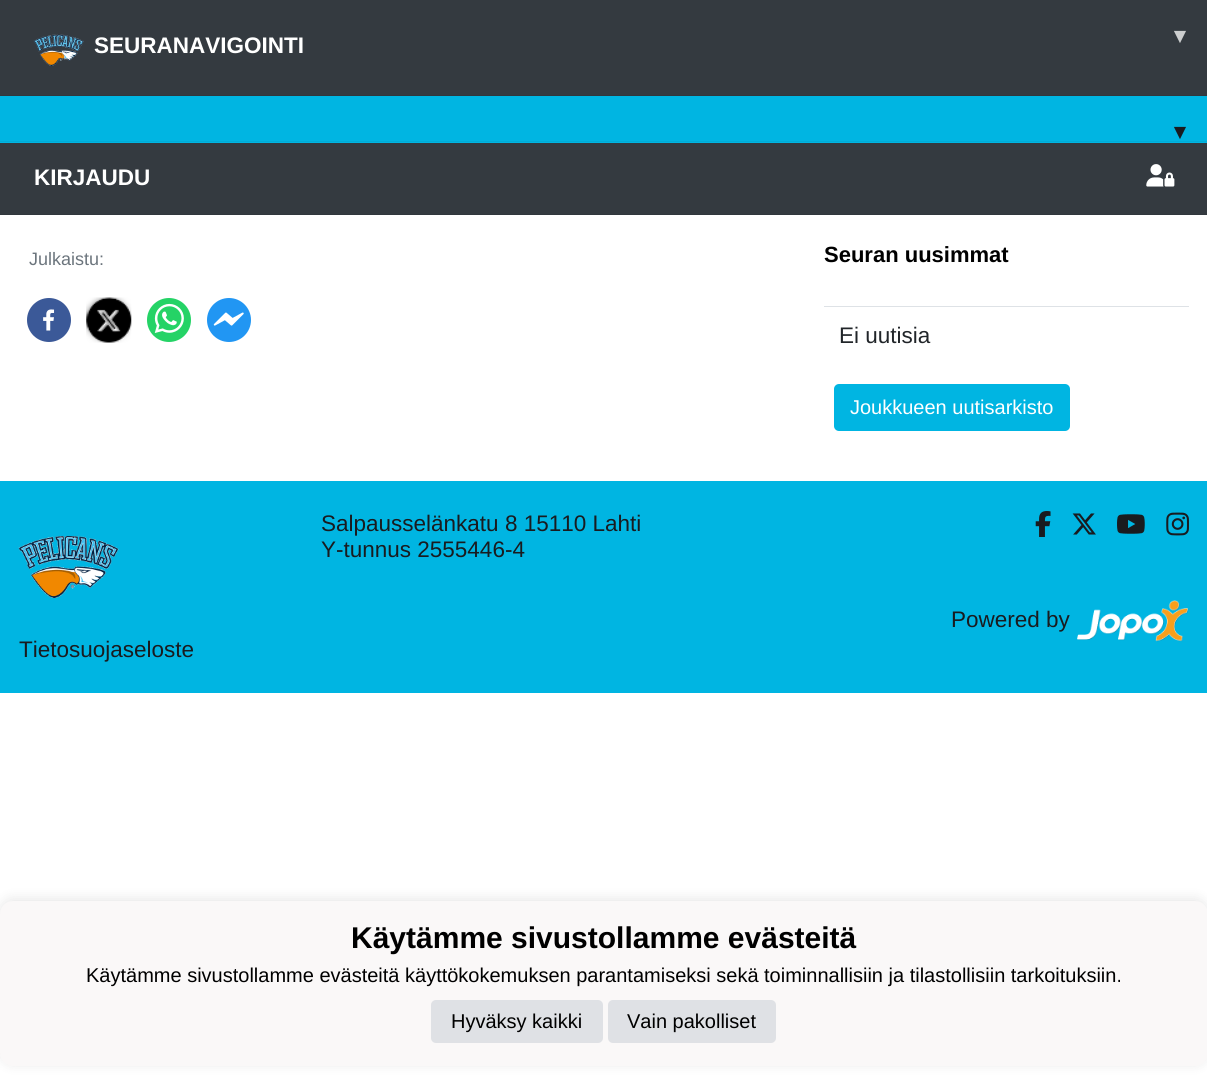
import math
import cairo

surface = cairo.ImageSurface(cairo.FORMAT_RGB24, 1207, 1077)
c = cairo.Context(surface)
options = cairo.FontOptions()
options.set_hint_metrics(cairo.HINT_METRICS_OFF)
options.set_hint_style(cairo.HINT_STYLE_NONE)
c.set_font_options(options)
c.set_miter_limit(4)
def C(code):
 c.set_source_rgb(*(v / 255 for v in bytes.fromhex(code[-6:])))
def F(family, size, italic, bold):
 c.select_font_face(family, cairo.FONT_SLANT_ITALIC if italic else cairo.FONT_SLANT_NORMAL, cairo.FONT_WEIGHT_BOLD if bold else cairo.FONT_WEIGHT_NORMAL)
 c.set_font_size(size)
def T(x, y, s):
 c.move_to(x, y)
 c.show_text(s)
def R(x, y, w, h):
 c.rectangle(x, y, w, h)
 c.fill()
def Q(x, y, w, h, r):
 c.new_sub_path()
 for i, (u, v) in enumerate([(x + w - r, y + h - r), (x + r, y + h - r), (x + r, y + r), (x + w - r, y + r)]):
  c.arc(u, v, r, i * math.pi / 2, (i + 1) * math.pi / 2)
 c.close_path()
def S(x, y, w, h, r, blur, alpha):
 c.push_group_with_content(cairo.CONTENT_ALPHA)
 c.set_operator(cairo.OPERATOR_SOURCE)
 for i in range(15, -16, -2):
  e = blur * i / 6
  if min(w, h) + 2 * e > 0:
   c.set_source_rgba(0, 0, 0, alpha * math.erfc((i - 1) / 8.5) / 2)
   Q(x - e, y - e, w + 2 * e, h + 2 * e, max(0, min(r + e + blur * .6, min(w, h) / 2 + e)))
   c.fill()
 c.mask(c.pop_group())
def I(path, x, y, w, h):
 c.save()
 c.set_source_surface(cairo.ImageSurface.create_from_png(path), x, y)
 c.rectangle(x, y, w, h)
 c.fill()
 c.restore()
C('ffffff')
c.paint()
C('343a40')
R(0,0,1207,95)
C('31373d')
R(0,95,1207,1)
I('1.png',33,34,51,32)
F('Liberation Sans',22.5,0,1)
C('ffffff')
T(94,53,'SEURANAVIGOINTI')
F('DejaVu Sans',22.5,0,1)
C('cccecf')
T(1174,43,'▾')
C('00b5e2')
R(0,96,1207,47)
C('00acd7')
R(0,141,1207,1)
C('191b1f')
T(1174,139,'▾')
C('343a40')
R(0,143,1207,71)
C('31373d')
R(0,214,1207,1)
F('Liberation Sans',22.5,0,1)
C('ffffff')
T(34,185,'KIRJAUDU')
I('2.png',1146,164,29,23)
F('Liberation Sans',18,0,0)
C('6c757d')
T(29,265,'Julkaistu:')
I('3.png',27,298,44,44)
I('4.png',86,297,46,46)
I('5.png',147,298,44,44)
I('6.png',207,298,44,44)
F('Liberation Sans',22,0,1)
C('000000')
T(824,262,'Seuran uusimmat')
C('dee2e6')
R(824,306,365,1)
F('Liberation Sans',22.5,0,0)
C('212529')
T(839,343,'Ei uutisia')
C('00b5e2')
Q(834,384,236,47,5)
c.fill()
F('Liberation Sans',20,0,0)
C('ffffff')
T(850,414,'Joukkueen uutisarkisto')
C('00b5e2')
R(0,481,1207,212)
F('Liberation Sans',22.5,0,0)
C('191b1f')
T(321,531,'Salpausselänkatu 8 15110 Lahti')
T(321,557,'Y-tunnus 2555446-4')
I('7.png',1035,511,16,26)
I('8.png',1072,513,24,22)
I('9.png',1117,514,28,20)
I('10.png',1166,512,23,24)
T(951,627,'Powered by')
I('11.png',1077,600,112,42)
I('12.png',18,536,101,62)
T(19,657,'Tietosuojaseloste')
C('000000')
S(0,899,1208,165,13,6,.1)
C('faf8f8')
Q(0,901,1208,165,13)
c.fill()
F('Liberation Sans',30,0,1)
C('000000')
T(351,948,'Käytämme sivustollamme evästeitä')
F('Liberation Sans',20,0,0)
T(86,982,'Käytämme sivustollamme evästeitä käyttökokemuksen parantamiseksi sekä toiminnallisiin ja tilastollisiin tarkoituksiin.')
C('dfe1e5')
Q(431,1000,172,43,5)
c.fill()
C('000000')
T(451,1028,'Hyväksy kaikki')
C('dfe1e5')
Q(608,1000,168,43,5)
c.fill()
C('000000')
T(627,1028,'Vain pakolliset')
surface.write_to_png('o.png')
